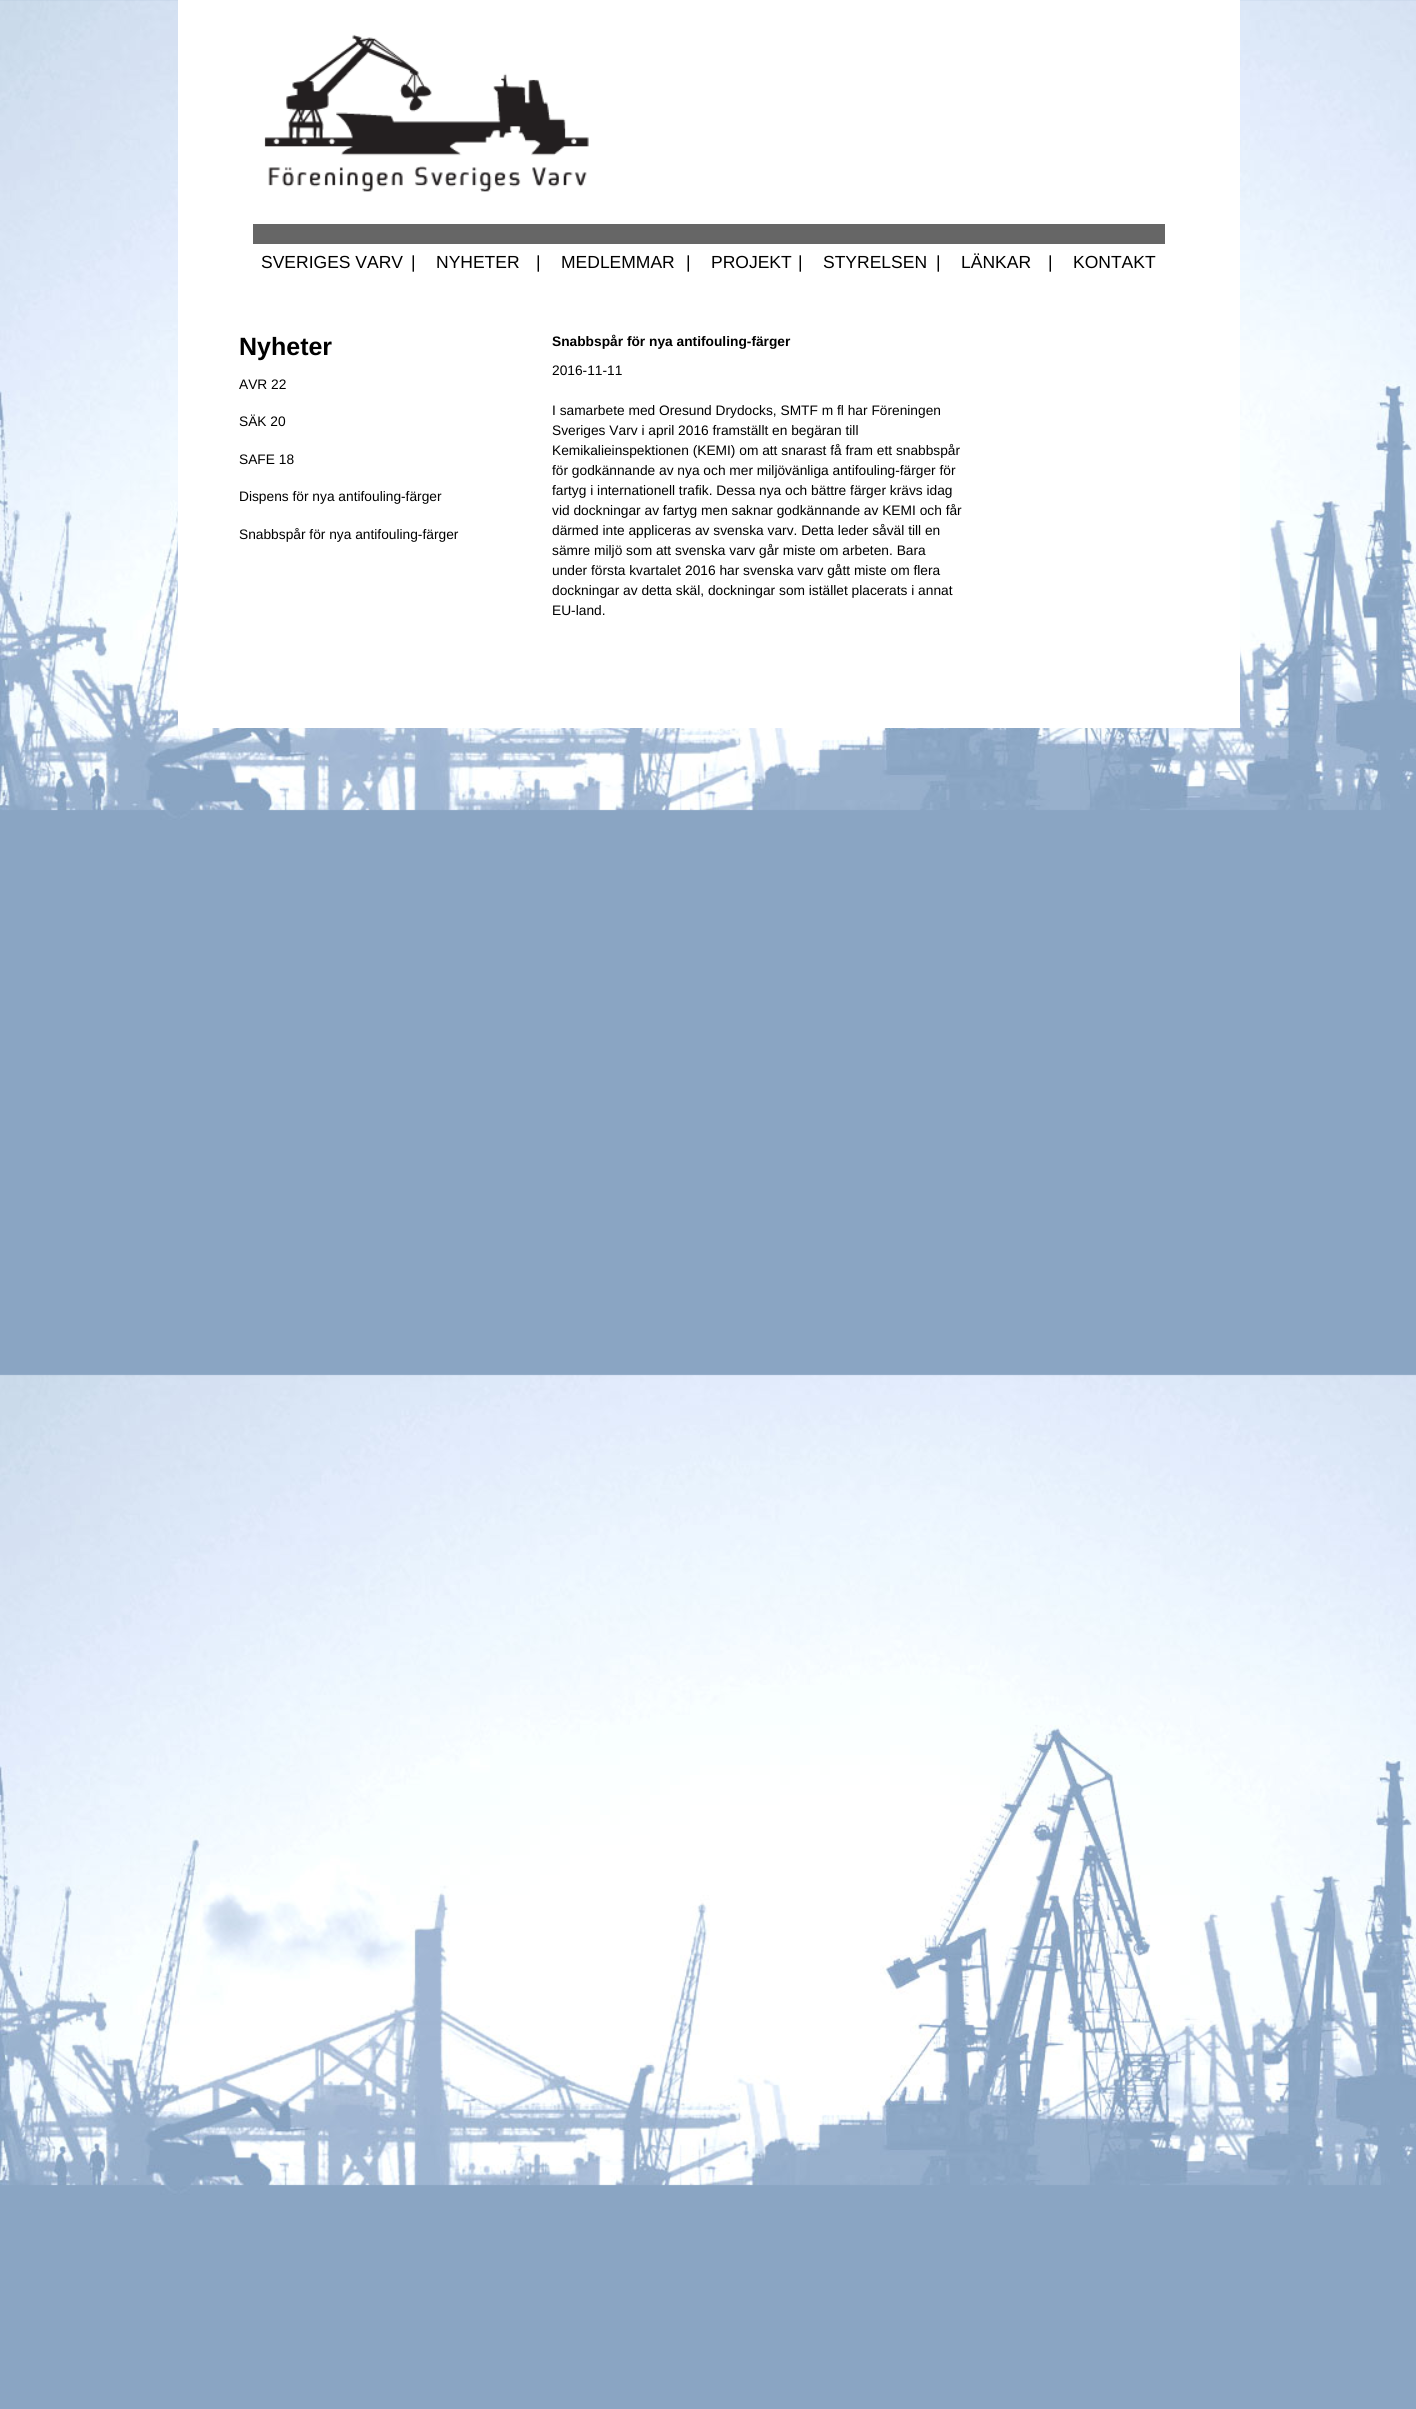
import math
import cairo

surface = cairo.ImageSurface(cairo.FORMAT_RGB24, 1416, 2409)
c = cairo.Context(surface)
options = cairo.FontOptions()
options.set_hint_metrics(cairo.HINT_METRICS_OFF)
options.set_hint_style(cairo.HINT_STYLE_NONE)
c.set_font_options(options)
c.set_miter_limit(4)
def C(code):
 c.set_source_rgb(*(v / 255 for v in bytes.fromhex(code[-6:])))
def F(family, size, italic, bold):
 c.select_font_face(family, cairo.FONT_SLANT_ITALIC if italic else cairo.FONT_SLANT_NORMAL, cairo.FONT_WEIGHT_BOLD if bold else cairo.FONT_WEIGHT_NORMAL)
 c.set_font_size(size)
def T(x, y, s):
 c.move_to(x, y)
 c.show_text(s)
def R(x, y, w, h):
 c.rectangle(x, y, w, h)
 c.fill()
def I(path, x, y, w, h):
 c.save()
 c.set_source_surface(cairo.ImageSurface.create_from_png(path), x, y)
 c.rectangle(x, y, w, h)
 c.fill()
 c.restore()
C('ffffff')
c.paint()
I('1.png',0,0,1416,2409)
C('ffffff')
R(178,0,1062,728)
I('2.png',264,34,325,158)
C('666666')
R(253,224,912,20)
F('Liberation Sans',17.5,0,0)
C('000000')
T(261,268,'SVERIGES VARV')
T(411,268,'|')
T(436,268,'NYHETER')
T(536,268,'|')
T(561,268,'MEDLEMMAR')
T(686,268,'|')
T(711,268,'PROJEKT')
T(798,268,'|')
T(823,268,'STYRELSEN')
T(936,268,'|')
T(961,268,'LÄNKAR')
T(1048,268,'|')
T(1073,268,'KONTAKT')
F('Liberation Sans',25,0,1)
T(239,355,'Nyheter')
F('Liberation Sans',13.75,0,0)
T(239,389,'AVR 22')
T(239,426,'SÄK 20')
T(239,464,'SAFE 18')
T(239,501,'Dispens för nya antifouling-färger')
T(239,539,'Snabbspår för nya antifouling-färger')
F('Liberation Sans',13.75,0,1)
T(552,346,'Snabbspår för nya antifouling-färger')
F('Liberation Sans',13.75,0,0)
T(552,375,'2016-11-11')
T(552,415,'I samarbete med Oresund Drydocks, SMTF m fl har Föreningen')
T(552,435,'Sveriges Varv i april 2016 framställt en begäran till')
T(552,455,'Kemikalieinspektionen (KEMI) om att snarast få fram ett snabbspår')
T(552,475,'för godkännande av nya och mer miljövänliga antifouling-färger för')
T(552,495,'fartyg i internationell trafik. Dessa nya och bättre färger krävs idag')
T(552,515,'vid dockningar av fartyg men saknar godkännande av KEMI och får')
T(552,535,'därmed inte appliceras av svenska varv. Detta leder såväl till en')
T(552,555,'sämre miljö som att svenska varv går miste om arbeten. Bara')
T(552,575,'under första kvartalet 2016 har svenska varv gått miste om flera')
T(552,595,'dockningar av detta skäl, dockningar som istället placerats i annat')
T(552,615,'EU-land.')
surface.write_to_png('o.png')
